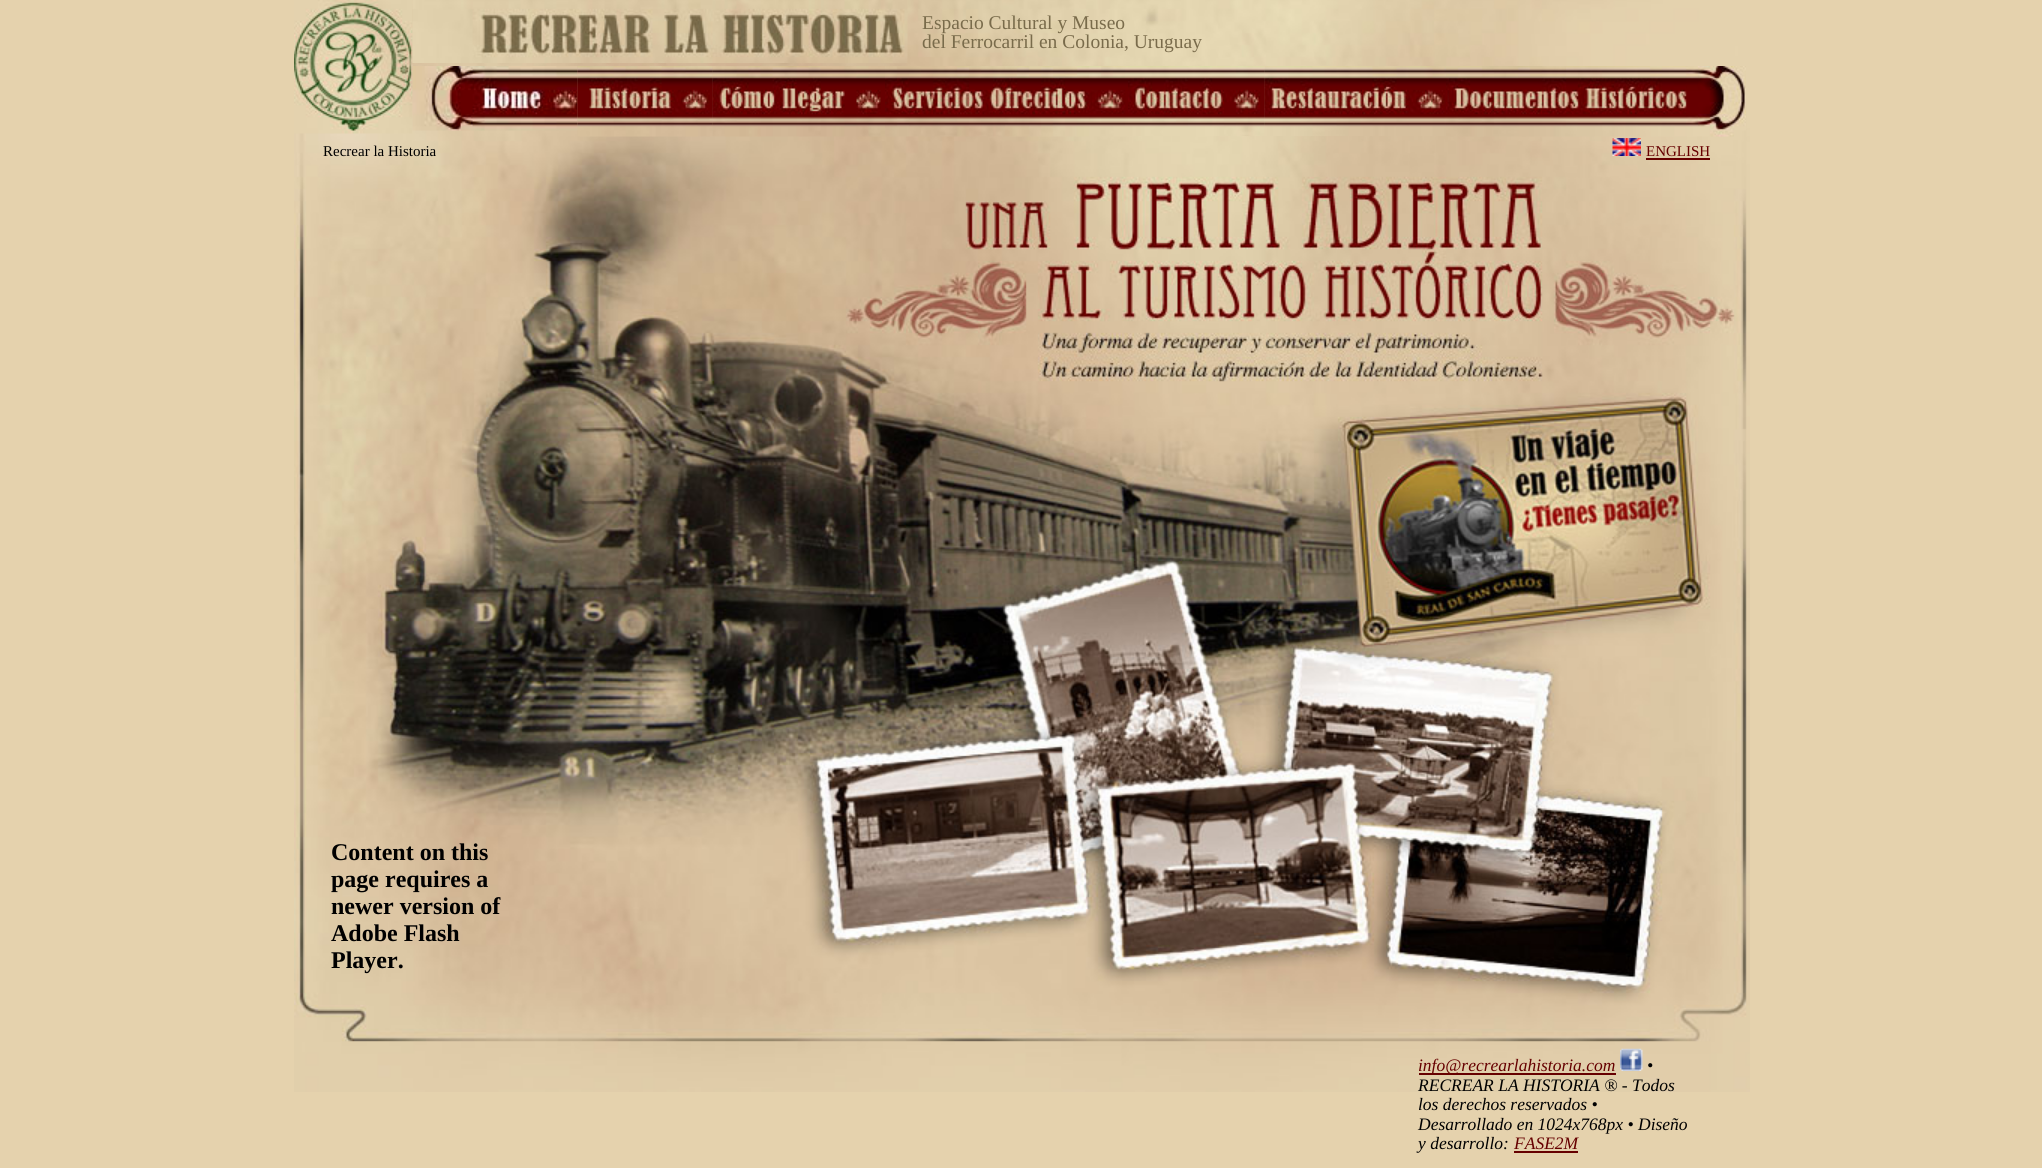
import math
import cairo

surface = cairo.ImageSurface(cairo.FORMAT_RGB24, 2042, 1168)
c = cairo.Context(surface)
options = cairo.FontOptions()
options.set_hint_metrics(cairo.HINT_METRICS_OFF)
options.set_hint_style(cairo.HINT_STYLE_NONE)
c.set_font_options(options)
c.set_miter_limit(4)
def C(code):
 c.set_source_rgb(*(v / 255 for v in bytes.fromhex(code[-6:])))
def F(family, size, italic, bold):
 c.select_font_face(family, cairo.FONT_SLANT_ITALIC if italic else cairo.FONT_SLANT_NORMAL, cairo.FONT_WEIGHT_BOLD if bold else cairo.FONT_WEIGHT_NORMAL)
 c.set_font_size(size)
def T(x, y, s):
 c.move_to(x, y)
 c.show_text(s)
def R(x, y, w, h):
 c.rectangle(x, y, w, h)
 c.fill()
def I(path, x, y, w, h):
 c.save()
 c.set_source_surface(cairo.ImageSurface.create_from_png(path), x, y)
 c.rectangle(x, y, w, h)
 c.fill()
 c.restore()
C('e5d2ad')
c.paint()
I('1.png',294,0,1456,1092)
I('2.png',294,0,119,134)
I('3.png',412,0,496,63)
F('Liberation Serif',19.5,0,0)
C('796b4b')
T(922,29,'Espacio Cultural y Museo')
T(922,48,'del Ferrocarril en Colonia, Uruguay')
I('4.png',412,66,166,65)
I('5.png',577,66,136,65)
I('6.png',577,66,136,71)
I('7.png',712,66,1,65)
I('8.png',712,66,173,71)
I('9.png',885,66,243,71)
I('10.png',1264,66,1,65)
I('11.png',1128,66,137,70)
I('12.png',1264,66,1,64)
I('13.png',1264,66,182,70)
I('14.png',1734,66,12,65)
I('15.png',1446,66,288,71)
F('Liberation Serif',15,0,0)
C('000000')
T(323,156,'Recrear la Historia')
I('16.png',1612,138,29,18)
C('660000')
T(1646,156,'ENGLISH')
R(1646,158,64,2)
F('Liberation Serif',24,0,1)
C('000000')
T(331,860,'Content on this')
T(331,887,'page requires a')
T(331,914,'newer version of')
T(331,941,'Adobe Flash')
T(331,968,'Player.')
C('660000')
R(1419,1073,197,2)
F('Liberation Serif',17.5,1,0)
T(1418,1071,'info@recrearlahistoria.com')
I('17.png',1620,1048,23,23)
C('000000')
T(1647,1071,'•')
T(1418,1091,'RECREAR LA HISTORIA ® - Todos')
T(1418,1110,'los derechos reservados •')
T(1418,1130,'Desarrollado en 1024x768px • Diseño')
T(1418,1149,'y desarrollo:')
C('660000')
T(1514,1149,'FASE2M')
R(1514,1151,64,2)
surface.write_to_png('o.png')
